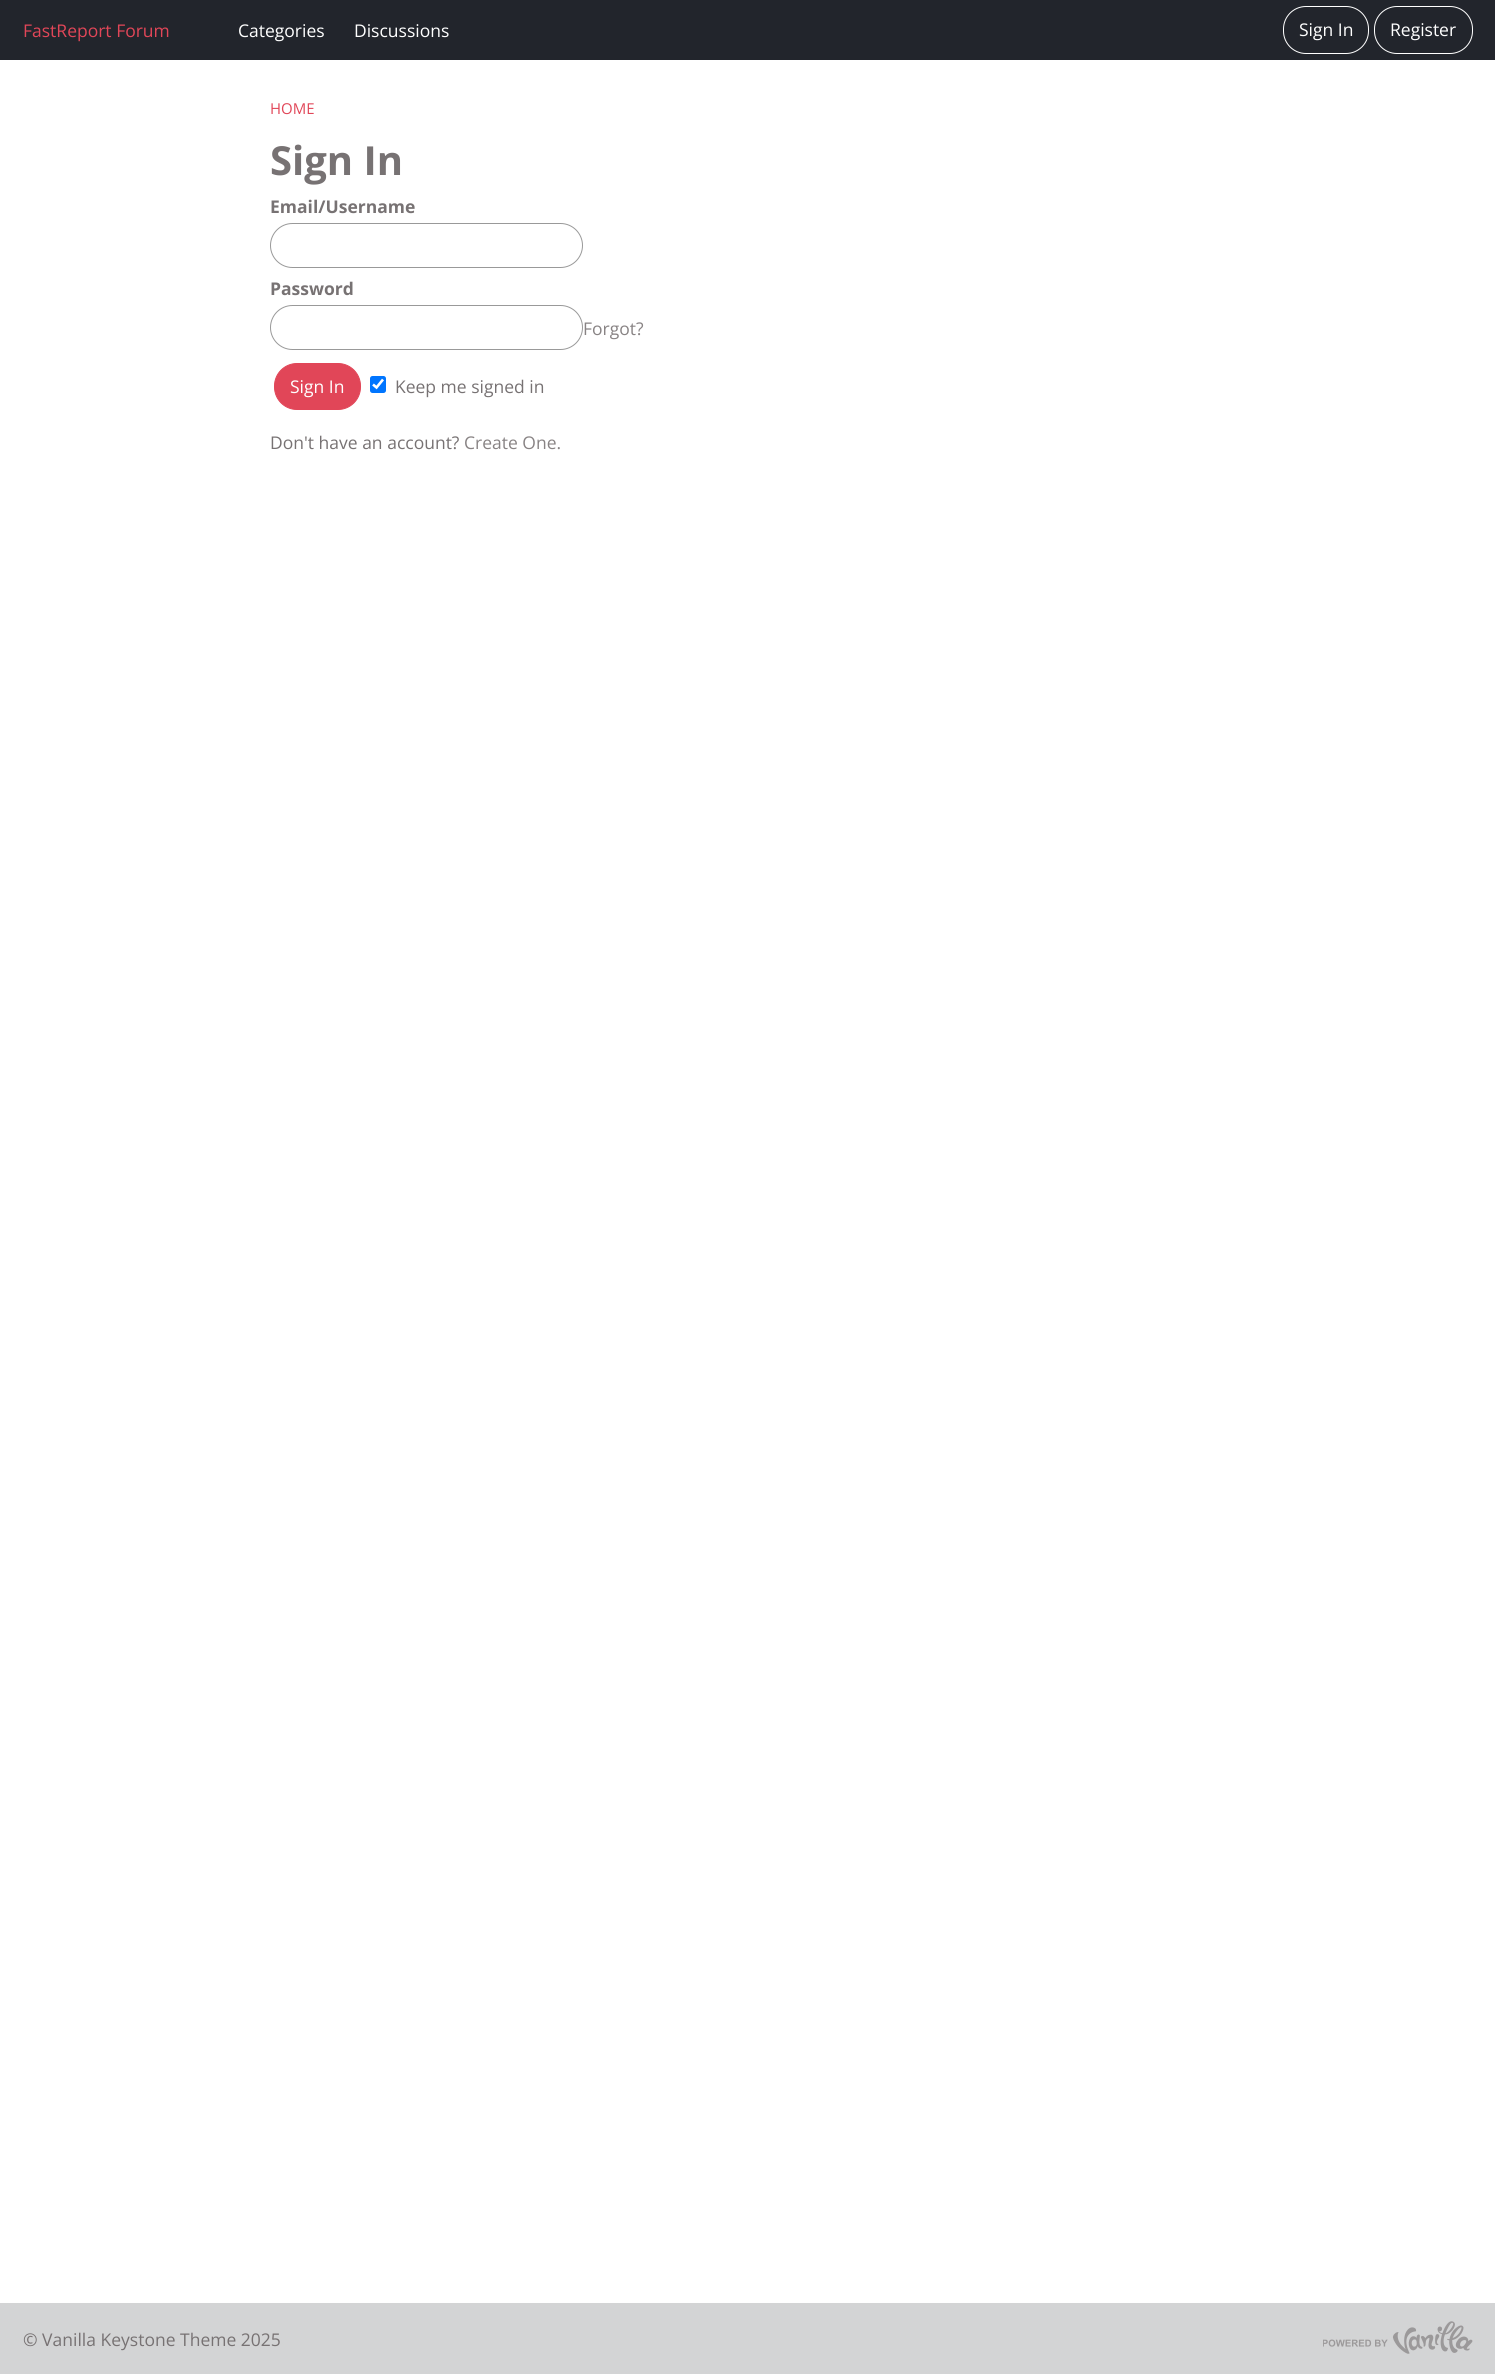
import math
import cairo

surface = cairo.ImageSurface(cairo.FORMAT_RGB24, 1495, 2374)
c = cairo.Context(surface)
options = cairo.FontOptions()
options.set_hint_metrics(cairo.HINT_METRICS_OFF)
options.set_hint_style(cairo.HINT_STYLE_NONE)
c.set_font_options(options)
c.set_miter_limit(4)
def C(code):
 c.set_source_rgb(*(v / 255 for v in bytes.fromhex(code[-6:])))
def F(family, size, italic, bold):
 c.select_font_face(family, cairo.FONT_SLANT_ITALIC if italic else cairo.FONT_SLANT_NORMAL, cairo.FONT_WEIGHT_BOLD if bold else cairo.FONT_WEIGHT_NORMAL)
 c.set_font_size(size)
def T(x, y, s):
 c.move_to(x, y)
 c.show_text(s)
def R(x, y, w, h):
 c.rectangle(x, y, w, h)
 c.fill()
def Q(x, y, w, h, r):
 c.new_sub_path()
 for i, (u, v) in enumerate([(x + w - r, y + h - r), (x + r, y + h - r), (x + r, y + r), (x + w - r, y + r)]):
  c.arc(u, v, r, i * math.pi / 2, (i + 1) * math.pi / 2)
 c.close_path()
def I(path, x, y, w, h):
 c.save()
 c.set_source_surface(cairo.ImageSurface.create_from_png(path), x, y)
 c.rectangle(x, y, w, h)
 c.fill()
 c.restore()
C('ffffff')
c.paint()
C('22252c')
R(0,0,1495,60)
F('Open Sans',17.5,0,0)
C('e14658')
T(23,37,'FastReport Forum')
C('ffffff')
T(238,37,'Categories')
T(354,37,'Discussions')
Q(1283.5,6.5,85,47,22.5)
c.set_line_width(1)
c.stroke()
T(1299,36,'Sign In')
Q(1374.5,6.5,98,47,22.5)
c.stroke()
T(1390,36,'Register')
F('Open Sans',15,0,0)
C('e14658')
T(270,114,'HOME')
F('Open Sans',40,0,1)
C('777273')
T(270,175,'Sign In')
F('Open Sans',17.5,0,1)
T(270,213,'Email/Username')
Q(270.5,223.5,312,44,22)
C('999999')
c.stroke()
C('777273')
T(270,295,'Password')
Q(270.5,305.5,312,44,22)
C('999999')
c.stroke()
F('Open Sans',17.5,0,0)
C('888384')
T(583,335,'Forgot?')
C('e14658')
Q(274.5,363.5,86,46,22.5)
c.fill_preserve()
c.stroke()
C('ffffff')
T(290,393,'Sign In')
C('0075ff')
Q(370,376,16,17,2.5)
c.fill()
c.new_path()
c.move_to(373,384.5)
c.line_to(376.5,387.5)
c.line_to(383,379.5)
C('ffffff')
c.set_line_width(2.6)
c.stroke()
C('777273')
T(395,393,'Keep me signed in')
T(270,449,'Don\'t have an account?')
C('888384')
T(464,449,'Create One.')
C('d3d4d5')
R(0,2303,1495,71)
C('777273')
T(23,2346,'© Vanilla Keystone Theme 2025')
I('1.png',1323,2321,150,33)
surface.write_to_png('o.png')
